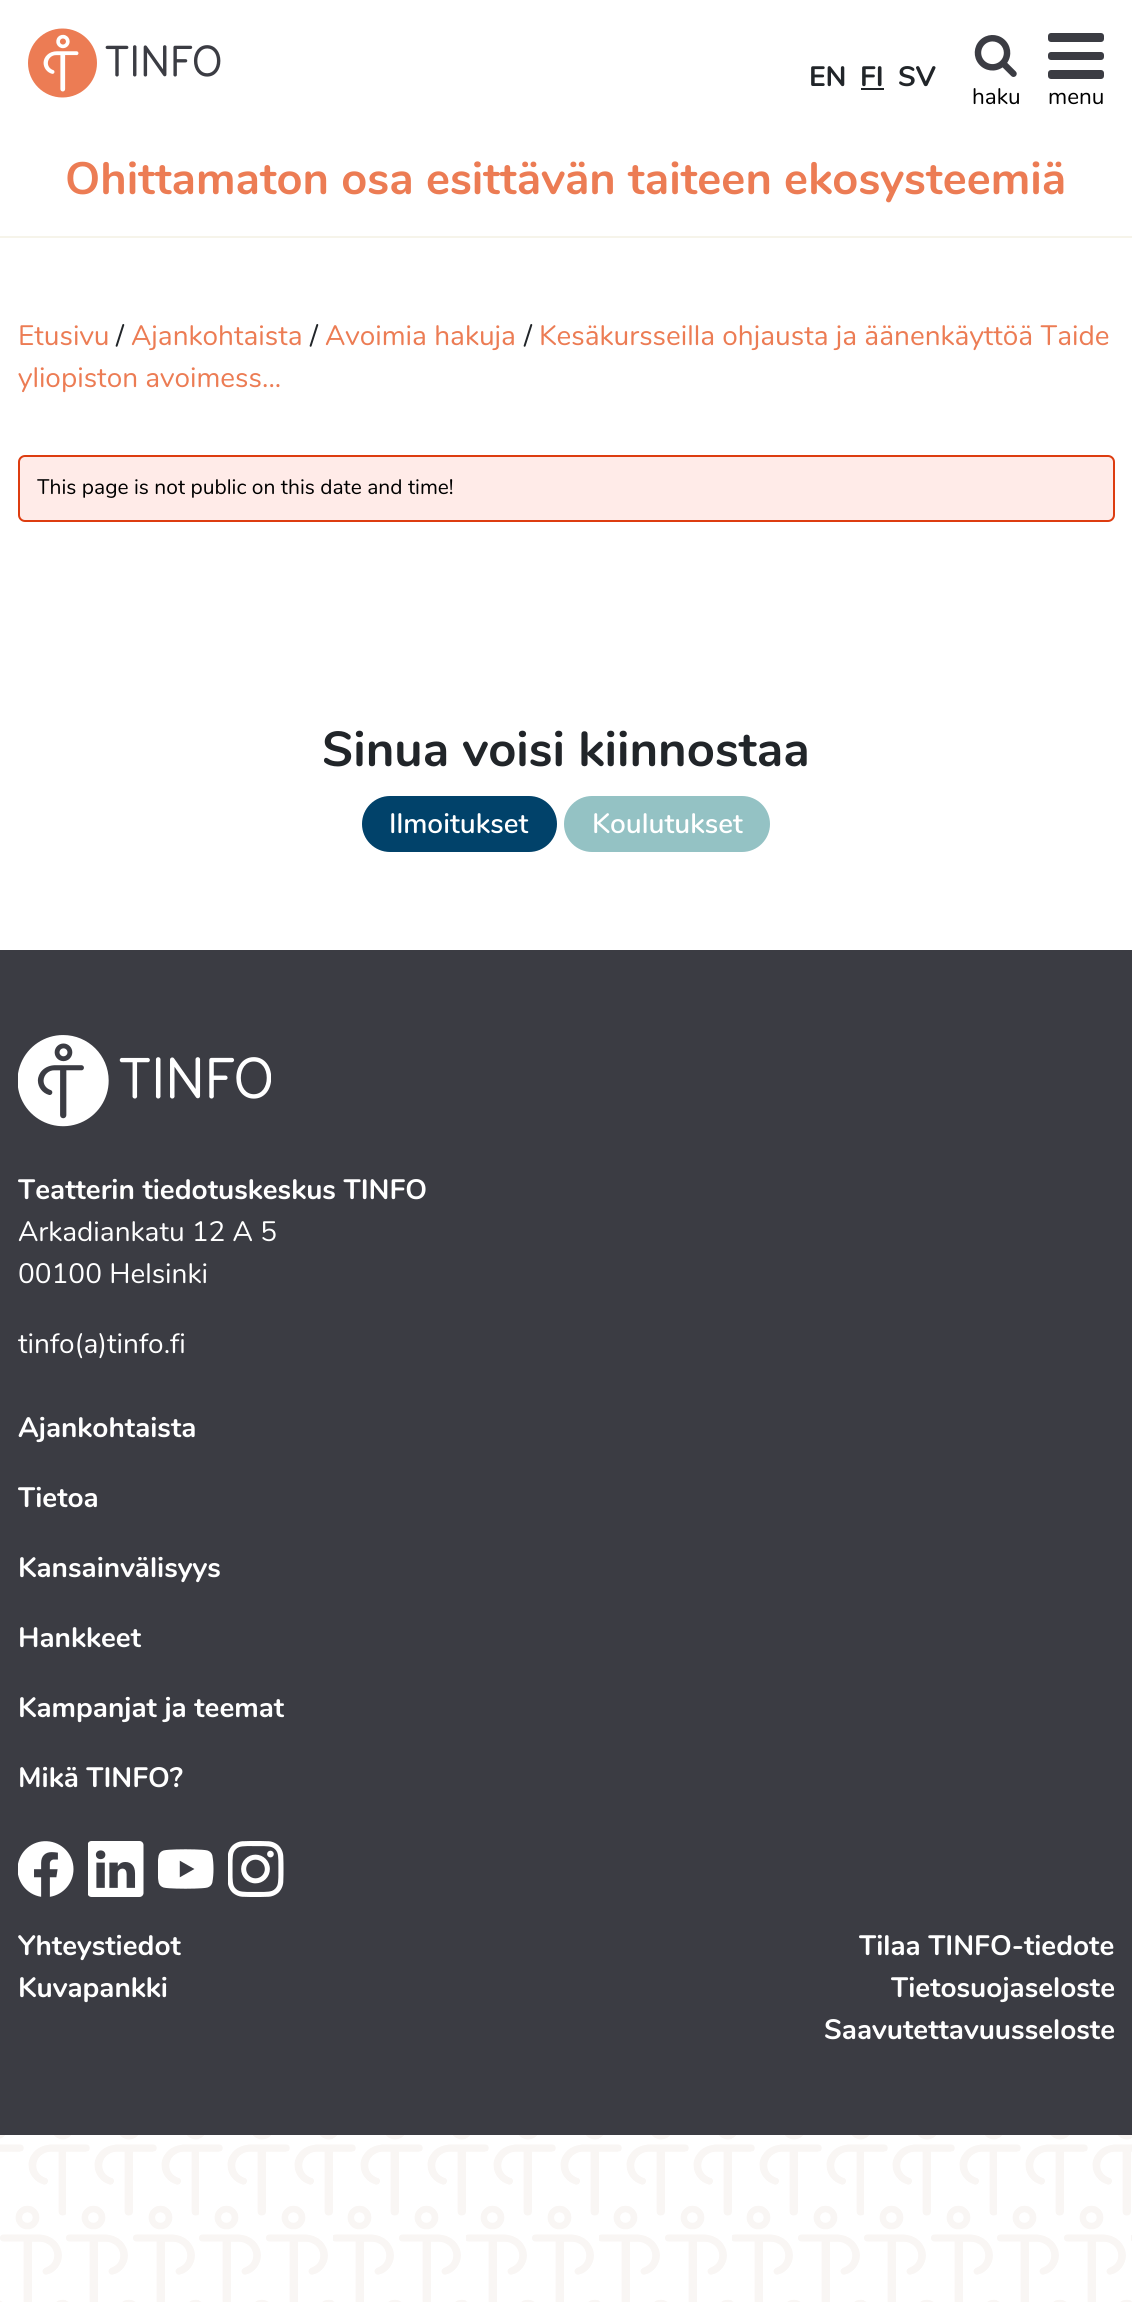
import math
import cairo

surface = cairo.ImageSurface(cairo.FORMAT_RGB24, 1132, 2302)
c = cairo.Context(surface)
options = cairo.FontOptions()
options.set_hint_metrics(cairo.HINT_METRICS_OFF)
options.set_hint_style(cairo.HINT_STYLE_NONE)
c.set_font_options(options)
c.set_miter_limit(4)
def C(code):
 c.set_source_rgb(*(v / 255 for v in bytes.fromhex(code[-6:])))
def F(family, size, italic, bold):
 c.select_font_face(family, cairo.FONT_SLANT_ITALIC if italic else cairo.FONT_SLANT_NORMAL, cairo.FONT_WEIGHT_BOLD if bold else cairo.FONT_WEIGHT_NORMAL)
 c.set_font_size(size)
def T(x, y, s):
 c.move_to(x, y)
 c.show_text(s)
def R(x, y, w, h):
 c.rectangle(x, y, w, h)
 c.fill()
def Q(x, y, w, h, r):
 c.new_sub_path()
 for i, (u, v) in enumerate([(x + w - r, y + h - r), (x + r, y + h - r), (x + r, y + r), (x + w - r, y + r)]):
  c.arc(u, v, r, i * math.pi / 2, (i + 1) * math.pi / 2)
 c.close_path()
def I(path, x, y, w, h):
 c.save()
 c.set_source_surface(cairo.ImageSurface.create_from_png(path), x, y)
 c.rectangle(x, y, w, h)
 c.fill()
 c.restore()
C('ffffff')
c.paint()
I('1.png',0,2135,1132,167)
C('f6f4ea')
R(0,236,1132,2)
I('2.png',28,28,193,70)
F('Nunito',28,0,1)
C('212529')
T(809,86,'EN')
T(860,86,'FI')
R(861,88,23,2)
T(898,86,'SV')
I('3.png',974,35,43,42)
F('Nunito',22.5,0,0)
C('000000')
T(972,104,'haku')
C('3b3c43')
Q(1048,70,56,9,3)
c.fill()
Q(1048,52,56,8,3)
c.fill()
Q(1048,33,56,9,3)
c.fill()
C('000000')
T(1048,104,'menu')
F('Nunito',45.25,0,1)
C('ec7c54')
T(65,194,'Ohittamaton osa esittävän taiteen ekosysteemiä')
F('Nunito',28,0,0)
T(18,345,'Etusivu')
C('212529')
T(116,345,'/')
C('ec7c54')
T(131,345,'Ajankohtaista')
C('212529')
T(310,345,'/')
C('ec7c54')
T(325,345,'Avoimia hakuja')
C('212529')
T(524,345,'/')
C('ec7c54')
T(539,345,'Kesäkursseilla ohjausta ja äänenkäyttöä Taide')
T(18,387,'yliopiston avoimess...')
C('ffebe8')
Q(19,456,1095,65,6)
c.fill_preserve()
C('dd3c10')
c.stroke()
F('Nunito',21,0,0)
C('000000')
T(37,494,'This page is not public on this date and time!')
F('Nunito',49,0,1)
C('212529')
T(322,766,'Sinua voisi kiinnostaa')
C('01426a')
Q(362,796,195,56,28)
c.fill()
F('Nunito SemiBold',28,0,0)
C('ffffff')
T(389,833,'Ilmoitukset')
C('94c2c4')
Q(564,796,206,56,28)
c.fill()
C('ffffff')
T(592,833,'Koulutukset')
C('3b3c43')
R(0,950,1132,1185)
I('4.png',18,1035,253,92)
F('Nunito',28,0,1)
C('ffffff')
T(18,1199,'Teatterin tiedotuskeskus TINFO')
F('Nunito',28,0,0)
T(18,1241,'Arkadiankatu 12 A 5')
T(18,1283,'00100 Helsinki')
T(18,1353,'tinfo(a)tinfo.fi')
F('Nunito',28,0,1)
T(18,1437,'Ajankohtaista')
T(18,1507,'Tietoa')
T(18,1577,'Kansainvälisyys')
T(18,1647,'Hankkeet')
T(18,1717,'Kampanjat ja teemat')
T(18,1787,'Mikä TINFO?')
I('5.png',18,1841,56,56)
I('6.png',88,1841,56,56)
I('7.png',158,1849,56,40)
I('8.png',228,1841,56,56)
T(18,1955,'Yhteystiedot')
T(18,1997,'Kuvapankki')
T(859,1955,'Tilaa TINFO-tiedote')
T(891,1997,'Tietosuojaseloste')
T(824,2039,'Saavutettavuusseloste')
surface.write_to_png('o.png')
